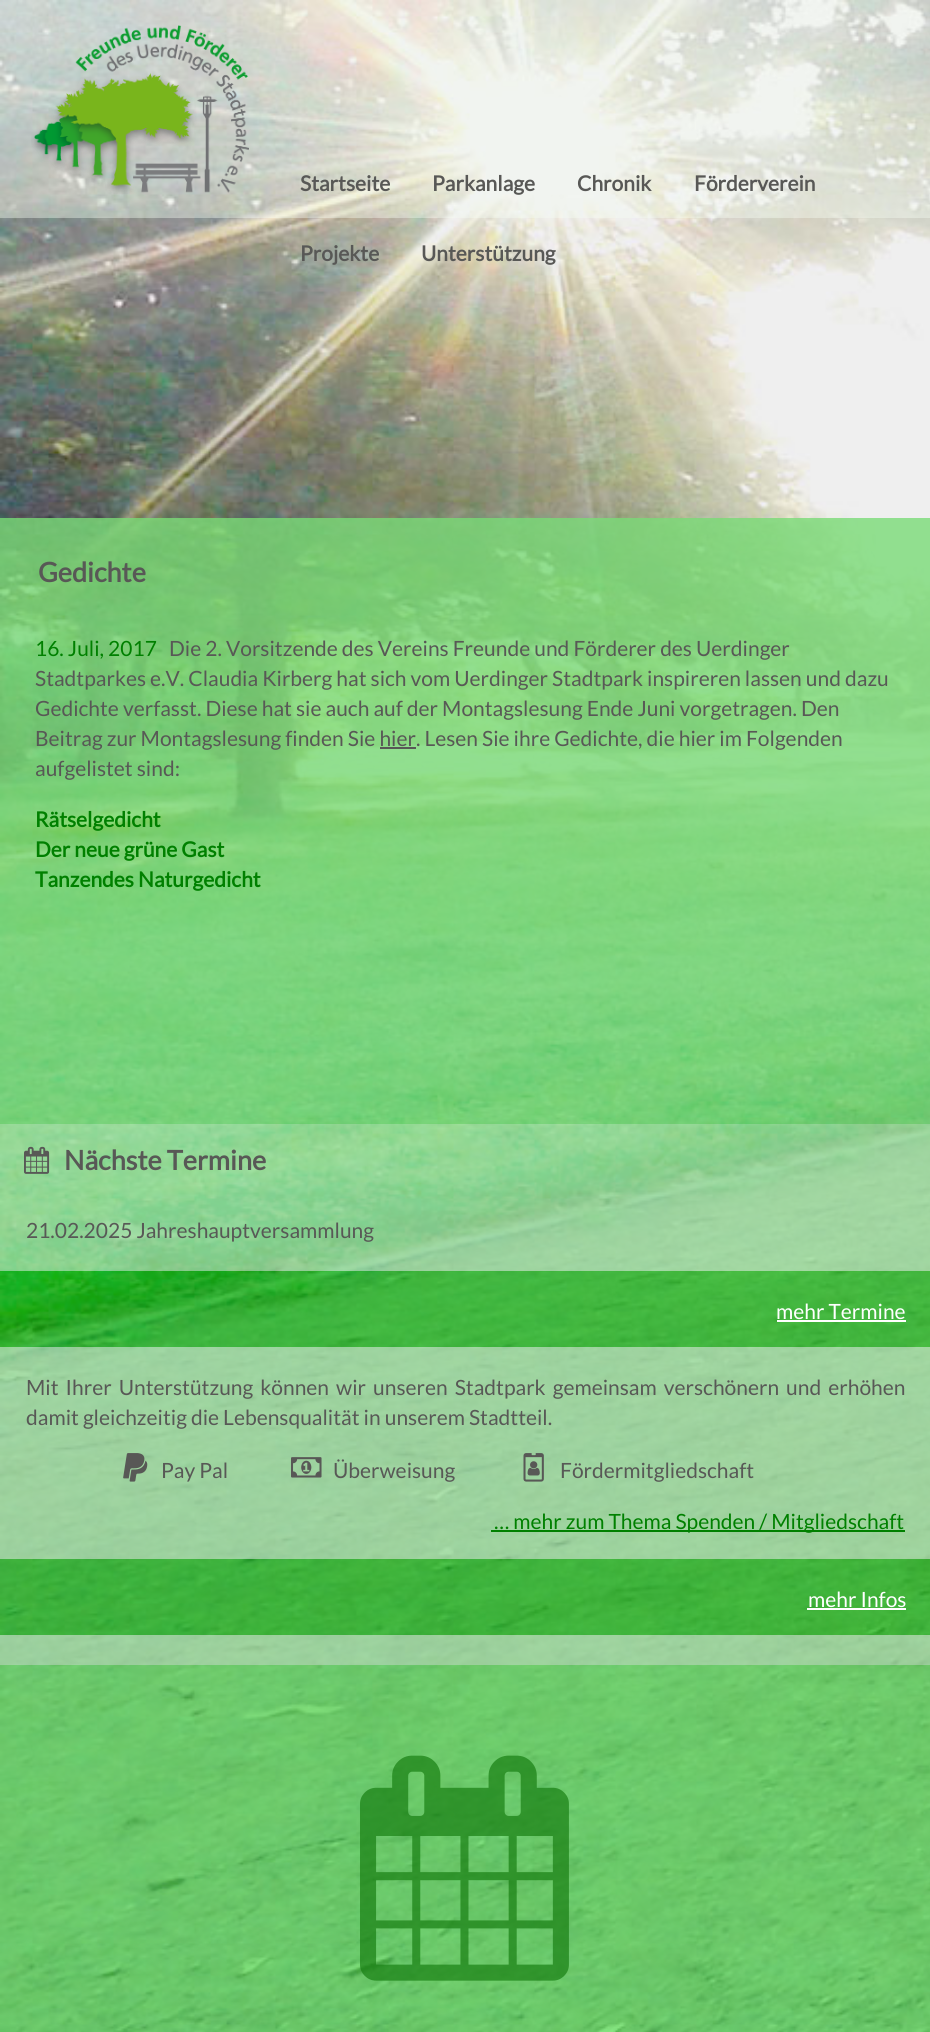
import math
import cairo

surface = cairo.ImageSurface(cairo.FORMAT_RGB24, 930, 2032)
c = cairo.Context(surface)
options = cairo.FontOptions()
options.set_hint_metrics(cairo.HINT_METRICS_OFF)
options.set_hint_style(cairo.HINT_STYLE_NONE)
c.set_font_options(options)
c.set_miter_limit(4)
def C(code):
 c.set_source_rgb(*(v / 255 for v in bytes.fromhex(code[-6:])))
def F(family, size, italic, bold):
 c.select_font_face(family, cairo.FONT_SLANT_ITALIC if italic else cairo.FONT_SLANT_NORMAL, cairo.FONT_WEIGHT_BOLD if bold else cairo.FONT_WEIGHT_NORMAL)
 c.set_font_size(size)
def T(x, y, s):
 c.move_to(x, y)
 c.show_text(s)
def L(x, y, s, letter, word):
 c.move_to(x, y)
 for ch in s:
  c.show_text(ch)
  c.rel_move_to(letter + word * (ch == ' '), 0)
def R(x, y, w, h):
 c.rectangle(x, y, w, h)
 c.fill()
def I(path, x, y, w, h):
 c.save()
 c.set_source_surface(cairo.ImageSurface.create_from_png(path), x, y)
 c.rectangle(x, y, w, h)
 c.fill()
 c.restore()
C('ffffff')
c.paint()
I('1.png',0,0,930,2032)
c.set_source_rgba(0.961,0.992,0.949,0.4)
R(0,0,930,218)
I('2.png',31,25,218,169)
F('Lato',21,0,1)
C('585856')
T(300,191,'Startseite')
T(432,191,'Parkanlage')
T(577,191,'Chronik')
T(694,191,'Förderverein')
T(300,261,'Projekte')
T(421,261,'Unterstützung')
c.set_source_rgba(0.478,0.855,0.467,0.8)
R(0,518,930,606)
F('Lato',27,0,1)
C('585856')
T(38,582,'Gedichte')
F('Lato',21,0,0)
C('008000')
T(35,656,'16. Juli, 2017')
C('585856')
T(169,656,'Die 2. Vorsitzende des Vereins Freunde und Förderer des Uerdinger')
T(35,686,'Stadtparkes e.V. Claudia Kirberg hat sich vom Uerdinger Stadtpark inspireren lassen und dazu')
T(35,716,'Gedichte verfasst. Diese hat sie auch auf der Montagslesung Ende Juni vorgetragen. Den')
T(35,746,'Beitrag zur Montagslesung finden Sie hier. Lesen Sie ihre Gedichte, die hier im Folgenden')
R(380,747,36,2)
T(35,776,'aufgelistet sind:')
F('Lato',21,0,1)
C('008000')
T(35,827,'Rätselgedicht')
T(35,857,'Der neue grüne Gast')
T(35,887,'Tanzendes Naturgedicht')
c.set_source_rgba(0.631,0.898,0.624,0.8)
R(0,1124,930,147)
I('3.png',24,1146,26,28)
F('Lato',27,0,1)
C('585856')
T(64,1170,'Nächste Termine')
F('Lato',21,0,0)
T(26,1238,'21.02.2025 Jahreshauptversammlung')
c.set_source_rgba(0.118,0.776,0.082,0.7)
R(0,1271,930,76)
C('ffffff')
T(776,1319,'mehr Termine')
R(777,1320,129,2)
c.set_source_rgba(0.631,0.898,0.624,0.8)
R(0,1347,930,212)
C('585856')
L(26,1395,'Mit Ihrer Unterstützung können wir unseren Stadtpark gemeinsam verschönern und erhöhen',0,3)
T(26,1425,'damit gleichzeitig die Lebensqualität in unserem Stadtteil.')
I('4.png',123,1453,25,29)
T(161,1478,'Pay Pal')
I('5.png',291,1457,31,21)
T(333,1478,'Überweisung')
I('6.png',523,1453,21,29)
T(560,1478,'Fördermitgliedschaft')
C('008000')
R(491,1530,414,2)
T(494,1529,'… mehr zum Thema Spenden / Mitgliedschaft')
c.set_source_rgba(0.118,0.776,0.082,0.7)
R(0,1559,930,76)
C('ffffff')
T(808,1607,'mehr Infos')
R(807,1608,99,2)
c.set_source_rgba(0.631,0.898,0.624,0.8)
R(0,1635,930,30)
c.set_source_rgba(0.376,0.91,0.349,0.7)
R(0,1665,930,367)
I('7.png',360,1755,209,226)
surface.write_to_png('o.png')
